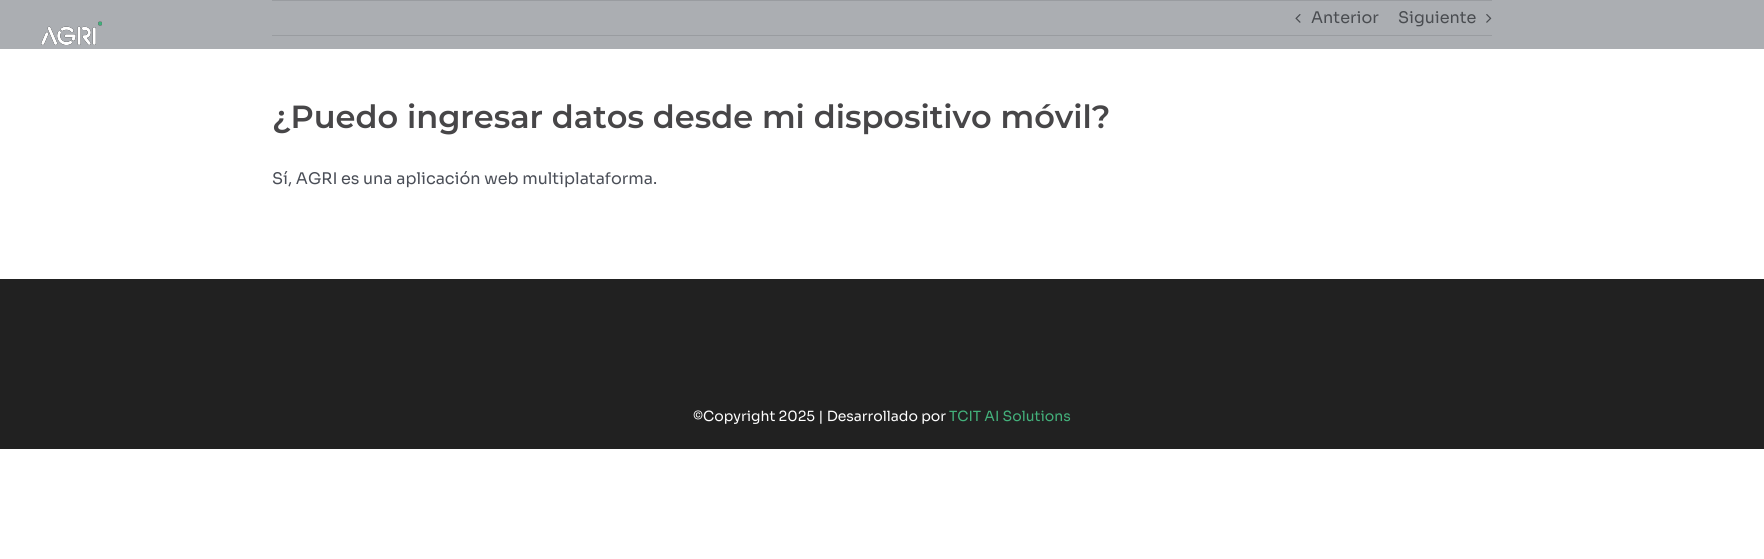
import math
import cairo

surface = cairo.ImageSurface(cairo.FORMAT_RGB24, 1764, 559)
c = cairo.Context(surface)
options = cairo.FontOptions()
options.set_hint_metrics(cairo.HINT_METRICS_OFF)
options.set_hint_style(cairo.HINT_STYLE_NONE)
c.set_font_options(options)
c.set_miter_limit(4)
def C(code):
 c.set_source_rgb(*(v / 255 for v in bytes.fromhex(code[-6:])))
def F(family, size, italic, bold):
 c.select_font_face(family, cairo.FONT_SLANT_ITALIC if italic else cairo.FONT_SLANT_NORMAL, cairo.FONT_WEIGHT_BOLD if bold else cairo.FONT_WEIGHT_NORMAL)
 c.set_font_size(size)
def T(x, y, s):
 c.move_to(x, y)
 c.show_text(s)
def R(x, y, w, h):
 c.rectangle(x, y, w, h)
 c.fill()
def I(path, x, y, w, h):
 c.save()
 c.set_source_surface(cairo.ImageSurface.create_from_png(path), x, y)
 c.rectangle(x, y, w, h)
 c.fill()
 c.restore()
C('ffffff')
c.paint()
C('abaeb2')
R(0,0,1764,49)
I('1.png',41,21,61,25)
C('999ca0')
R(272,0,1220,1)
R(272,35,1220,1)
I('2.png',1295,14,6,9)
F('Sora',16,0,0)
C('494c50')
T(1311,23,'Anterior')
T(1398,23,'Siguiente')
I('3.png',1486,14,6,9)
F('Montserrat SemiBold',32,0,0)
C('474648')
T(272,128,'¿Puedo ingresar datos desde mi dispositivo móvil?')
F('Sora',16,0,0)
C('4a4e57')
T(272,184,'Sí, AGRI es una aplicación web multiplataforma.')
C('212121')
R(0,279,1764,170)
F('Sora',14,0,0)
C('ffffff')
T(693,421,'©Copyright 2025 | Desarrollado por')
C('43b17b')
T(949,421,'TCIT AI Solutions')
surface.write_to_png('o.png')
